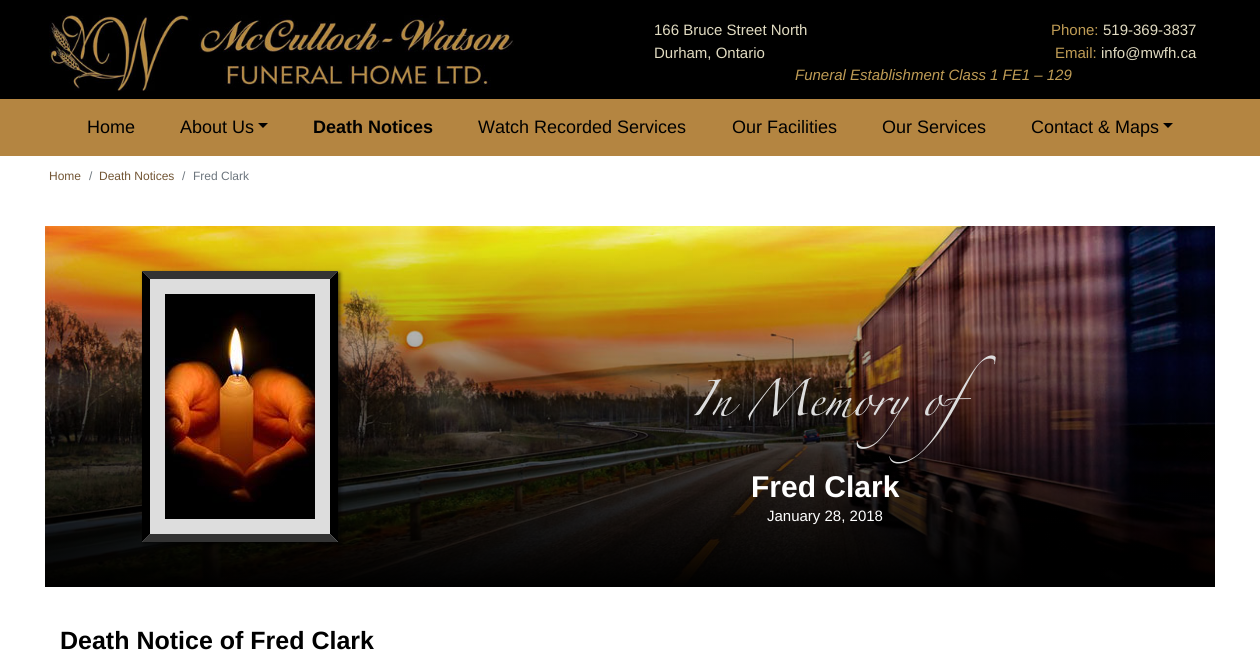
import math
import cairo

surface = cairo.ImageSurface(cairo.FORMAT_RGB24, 1260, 650)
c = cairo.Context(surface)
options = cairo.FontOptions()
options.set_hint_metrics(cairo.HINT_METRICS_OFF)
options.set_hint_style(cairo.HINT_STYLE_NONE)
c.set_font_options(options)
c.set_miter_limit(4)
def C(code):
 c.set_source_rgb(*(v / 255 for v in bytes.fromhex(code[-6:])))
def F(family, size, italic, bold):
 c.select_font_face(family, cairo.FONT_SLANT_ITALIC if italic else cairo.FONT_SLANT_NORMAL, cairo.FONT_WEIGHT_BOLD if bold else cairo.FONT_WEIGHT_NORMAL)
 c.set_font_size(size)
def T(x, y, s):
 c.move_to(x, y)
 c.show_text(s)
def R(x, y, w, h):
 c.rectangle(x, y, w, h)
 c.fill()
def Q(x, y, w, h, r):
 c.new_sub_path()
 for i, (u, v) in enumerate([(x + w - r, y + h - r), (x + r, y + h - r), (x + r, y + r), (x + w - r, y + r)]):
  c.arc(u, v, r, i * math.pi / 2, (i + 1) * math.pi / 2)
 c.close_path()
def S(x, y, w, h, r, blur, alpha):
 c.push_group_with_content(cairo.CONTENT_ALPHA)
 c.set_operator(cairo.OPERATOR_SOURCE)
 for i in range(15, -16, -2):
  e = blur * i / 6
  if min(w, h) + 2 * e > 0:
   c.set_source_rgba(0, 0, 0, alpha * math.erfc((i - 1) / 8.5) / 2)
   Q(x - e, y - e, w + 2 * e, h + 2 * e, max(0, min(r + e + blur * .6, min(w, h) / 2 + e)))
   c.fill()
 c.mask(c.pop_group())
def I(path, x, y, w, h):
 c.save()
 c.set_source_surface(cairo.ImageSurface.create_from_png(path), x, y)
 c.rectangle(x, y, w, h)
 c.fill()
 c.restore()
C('ffffff')
c.paint()
C('000000')
R(0,0,1260,98)
I('1.png',49,15,465,76)
F('Liberation Sans',15,0,0)
C('e1dbc1')
T(654,35,'166 Bruce Street North')
T(654,58,'Durham, Ontario')
C('bf9c55')
T(1051,35,'Phone:')
C('e1dbc1')
T(1103,35,'519-369-3837')
C('bf9c55')
T(1055,58,'Email:')
C('e1dbc1')
T(1101,58,'info@mwfh.ca')
F('Liberation Sans',15,1,0)
C('bf9c55')
T(795,80,'Funeral Establishment Class 1 FE1 – 129')
C('000000')
c.new_path()
c.move_to(378,89)
c.line_to(882,89)
c.curve_to(1091,89,1260,93,1260,98)
c.line_to(1260,104)
c.curve_to(1260,112,978,119,630,119)
c.curve_to(282,119,0,112,0,104)
c.line_to(0,98)
c.curve_to(0,93,169,89,378,89)
c.close_path()
c.fill()
C('b48541')
R(0,99,1260,57)
F('Liberation Sans',18,0,0)
C('000000')
T(87,133,'Home')
T(180,133,'About Us')
c.new_path()
c.move_to(258,123)
c.line_to(268,123)
c.line_to(263,128)
c.close_path()
c.fill()
F('Liberation Sans',18,0,1)
T(313,133,'Death Notices')
F('Liberation Sans',18,0,0)
T(478,133,'Watch Recorded Services')
T(732,133,'Our Facilities')
T(882,133,'Our Services')
T(1031,133,'Contact & Maps')
c.new_path()
c.move_to(1163,123)
c.line_to(1173,123)
c.line_to(1168,128)
c.close_path()
c.fill()
F('Liberation Sans',12,0,0)
C('725534')
T(49,180,'Home')
C('6c757d')
T(89,180,'/')
C('725534')
T(99,180,'Death Notices')
C('6c757d')
T(182,180,'/')
T(193,180,'Fred Clark')
I('2.png',45,226,1170,361)
C('000000')
S(144,273,196,271,0,2,.6)
C('dddddd')
R(142,271,196,271)
C('333333')
c.new_path()
c.move_to(142,271)
c.line_to(338,271)
c.line_to(330,279)
c.line_to(150,279)
c.close_path()
c.fill()
C('000000')
c.new_path()
c.move_to(338,271)
c.line_to(338,542)
c.line_to(330,534)
c.line_to(330,279)
c.close_path()
c.fill()
C('333333')
c.new_path()
c.move_to(338,542)
c.line_to(142,542)
c.line_to(150,534)
c.line_to(330,534)
c.close_path()
c.fill()
C('000000')
c.new_path()
c.move_to(142,542)
c.line_to(142,271)
c.line_to(150,279)
c.line_to(150,534)
c.close_path()
c.fill()
I('3.png',165,294,150,225)
F('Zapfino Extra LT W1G',80,0,0)
C('dddddd')
T(691,415,'In Memory of')
F('Liberation Sans',30,0,1)
C('ffffff')
T(751,497,'Fred Clark')
F('Liberation Sans',15,0,0)
T(767,521,'January 28, 2018')
F('Liberation Sans',25,0,1)
C('000000')
T(60,649,'Death Notice of Fred Clark')
surface.write_to_png('o.png')
